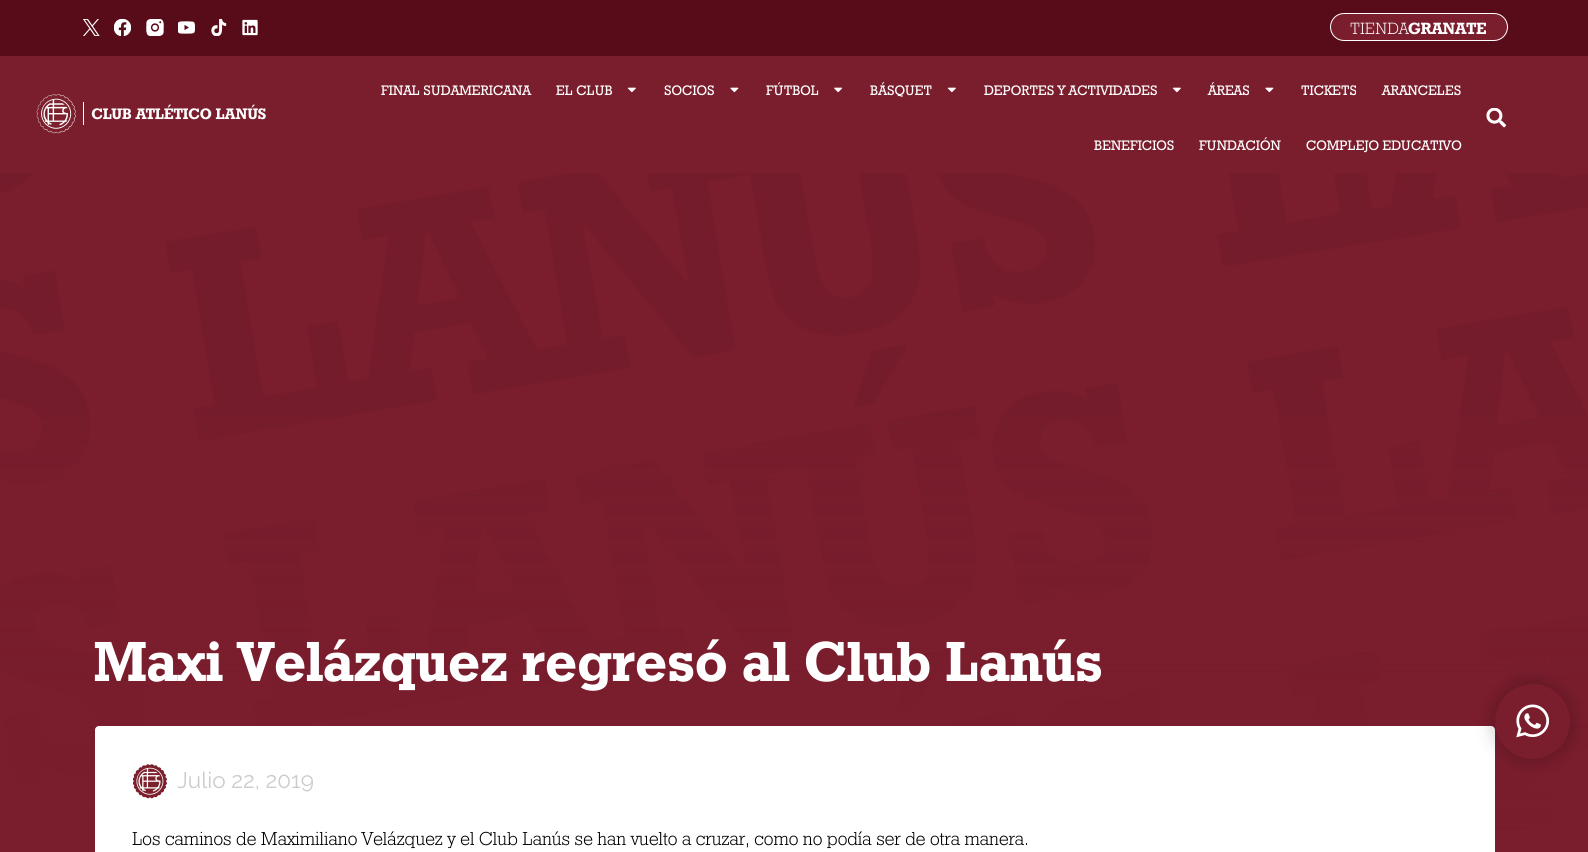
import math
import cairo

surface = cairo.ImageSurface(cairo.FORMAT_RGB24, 1588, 852)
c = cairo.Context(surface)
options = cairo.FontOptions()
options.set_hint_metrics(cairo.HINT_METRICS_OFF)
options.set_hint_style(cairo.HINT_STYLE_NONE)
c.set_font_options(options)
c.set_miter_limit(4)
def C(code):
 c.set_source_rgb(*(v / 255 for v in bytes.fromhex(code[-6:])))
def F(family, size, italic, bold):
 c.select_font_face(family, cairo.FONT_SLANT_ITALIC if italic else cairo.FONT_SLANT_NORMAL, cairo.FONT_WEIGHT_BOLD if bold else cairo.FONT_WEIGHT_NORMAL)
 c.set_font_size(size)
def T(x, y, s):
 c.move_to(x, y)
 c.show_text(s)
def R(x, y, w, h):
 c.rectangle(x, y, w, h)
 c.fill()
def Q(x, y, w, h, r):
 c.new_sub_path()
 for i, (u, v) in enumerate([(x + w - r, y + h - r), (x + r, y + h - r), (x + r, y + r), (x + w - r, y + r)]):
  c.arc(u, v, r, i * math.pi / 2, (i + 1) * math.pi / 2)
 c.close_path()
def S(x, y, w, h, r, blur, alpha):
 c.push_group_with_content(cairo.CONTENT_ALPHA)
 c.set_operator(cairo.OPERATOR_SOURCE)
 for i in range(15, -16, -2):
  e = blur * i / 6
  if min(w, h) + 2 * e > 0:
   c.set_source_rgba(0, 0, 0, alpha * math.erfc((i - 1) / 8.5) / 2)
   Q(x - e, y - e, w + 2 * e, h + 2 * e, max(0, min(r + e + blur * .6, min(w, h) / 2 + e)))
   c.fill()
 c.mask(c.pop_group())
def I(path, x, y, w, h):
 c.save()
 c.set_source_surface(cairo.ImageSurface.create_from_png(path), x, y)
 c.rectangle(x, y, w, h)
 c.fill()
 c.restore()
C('7a1d2d')
c.paint()
I('1.png',0,173,1588,663)
C('580c19')
R(0,0,1588,56)
I('2.png',83,19,17,17)
I('3.png',114,19,17,17)
I('4.png',146,19,18,17)
I('5.png',178,21,17,13)
I('6.png',211,19,16,17)
I('7.png',242,19,16,17)
C('7a1d2d')
Q(1330.5,13.5,177,27,13.5)
c.fill_preserve()
C('ffffff')
c.set_line_width(1)
c.stroke()
F('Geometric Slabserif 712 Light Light',16.25,0,0)
T(1350,34,'TIENDA')
F('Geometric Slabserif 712',16.25,0,1)
T(1408,34,'GRANATE')
I('8.png',36,94,230,40)
F('Geometric Slabserif 712 Medium',13.75,0,0)
T(381,95,'FINAL SUDAMERICANA')
T(556,95,'EL CLUB')
I('9.png',627,87,9,6)
T(664,95,'SOCIOS')
I('10.png',730,87,9,6)
T(766,95,'FÚTBOL')
I('11.png',834,87,9,6)
T(870,95,'BÁSQUET')
I('9.png',947,87,9,6)
T(984,95,'DEPORTES Y ACTIVIDADES')
I('9.png',1172,87,9,6)
T(1208,95,'ÁREAS')
I('10.png',1265,87,9,6)
T(1301,95,'TICKETS')
T(1382,95,'ARANCELES')
T(1094,150,'BENEFICIOS')
T(1199,150,'FUNDACIÓN')
T(1306,150,'COMPLEJO EDUCATIVO')
I('12.png',1486,108,20,20)
gradient = cairo.LinearGradient(794,172,794,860)
gradient.add_color_stop_rgba(0,0.478,0.114,0.176,0)
gradient.add_color_stop_rgba(1,0.478,0.114,0.176,1)
c.set_source(gradient)
R(0,417,1588,419)
F('Geometric Slabserif 712',56.25,0,1)
C('ffffff')
T(94,681,'Maxi Velázquez regresó al Club Lanús')
Q(95,726,1400,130,4)
c.fill()
I('13.png',133,764,34,35)
F('Raleway',22.5,0,0)
C('cccccc')
T(177,788,'Julio 22, 2019')
F('Geometric Slabserif 712 Light Light',18.75,0,0)
C('000000')
T(132,845,'Los caminos de Maximiliano Velázquez y el Club Lanús se han vuelto a cruzar, como no podía ser de otra manera.')
C('000000')
S(1495,684,75,75,37.5,9.5,.25)
C('7a1d2d')
c.arc(1532.5,721.5,37.5,0,2 * math.pi)
c.fill()
I('14.png',1516,704,34,34)
surface.write_to_png('o.png')
